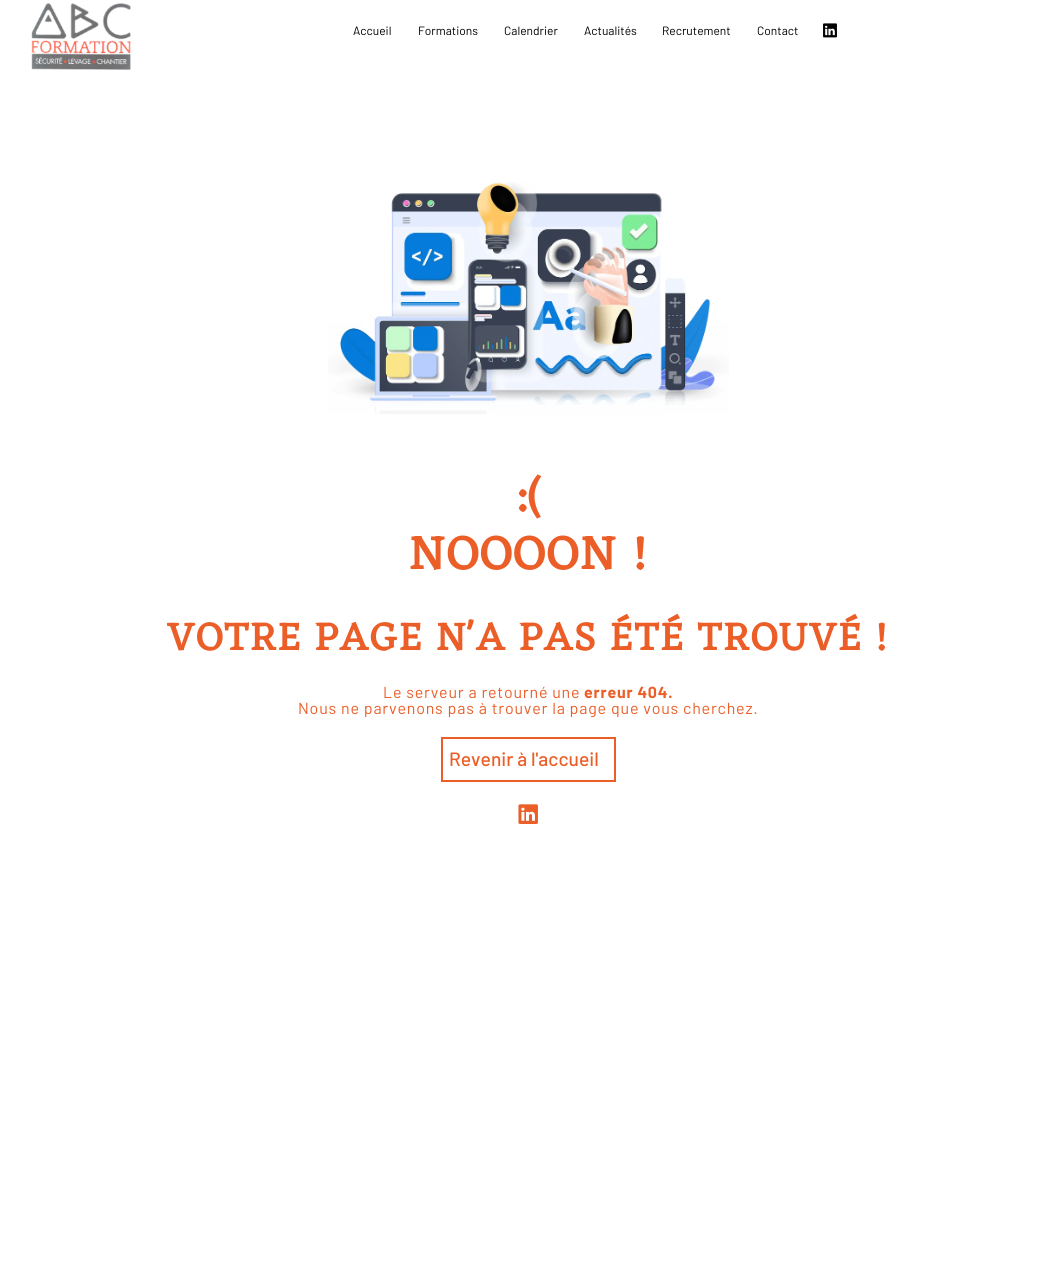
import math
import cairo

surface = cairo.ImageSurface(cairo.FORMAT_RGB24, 1057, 1270)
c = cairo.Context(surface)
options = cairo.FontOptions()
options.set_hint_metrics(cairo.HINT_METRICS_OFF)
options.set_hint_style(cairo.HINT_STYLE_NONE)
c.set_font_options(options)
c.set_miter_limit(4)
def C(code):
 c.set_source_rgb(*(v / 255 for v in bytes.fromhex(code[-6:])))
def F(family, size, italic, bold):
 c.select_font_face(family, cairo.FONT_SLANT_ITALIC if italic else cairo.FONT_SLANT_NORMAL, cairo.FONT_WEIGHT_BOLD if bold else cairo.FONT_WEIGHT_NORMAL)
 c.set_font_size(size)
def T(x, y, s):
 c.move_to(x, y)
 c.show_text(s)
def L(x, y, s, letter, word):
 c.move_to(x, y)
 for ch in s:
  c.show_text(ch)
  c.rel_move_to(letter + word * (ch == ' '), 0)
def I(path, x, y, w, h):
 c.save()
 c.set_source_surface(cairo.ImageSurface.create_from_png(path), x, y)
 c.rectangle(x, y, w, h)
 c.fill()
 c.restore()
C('ffffff')
c.paint()
I('1.png',31,3,100,67)
F('Barlow',12,0,0)
C('000000')
T(353,35,'Accueil')
T(418,35,'Formations')
T(504,35,'Calendrier')
T(584,35,'Actualités')
T(662,35,'Recrutement')
T(757,35,'Contact')
I('2.png',823,23,14,15)
I('3.png',328,182,401,232)
F('Eczar',48,0,1)
C('eb5e28')
L(515,511,':(',2,0)
L(409,569,'NOOOON !',2,0)
F('Eczar',40,0,1)
L(167,650,'VOTRE PAGE N\'A PAS ÉTÉ TROUVÉ !',2,0)
F('Barlow',16,0,0)
L(383,698,'Le serveur a retourné une',.8,0)
F('Barlow',16,0,1)
L(584,698,'erreur 404.',.8,0)
F('Barlow',16,0,0)
L(298,714,'Nous ne parvenons pas à trouver la page que vous cherchez.',.8,0)
c.rectangle(442,738,173,43)
c.stroke()
F('Barlow Medium',19.25,0,0)
T(449,766,'Revenir à l\'accueil')
I('4.png',518,804,20,20)
surface.write_to_png('o.png')
